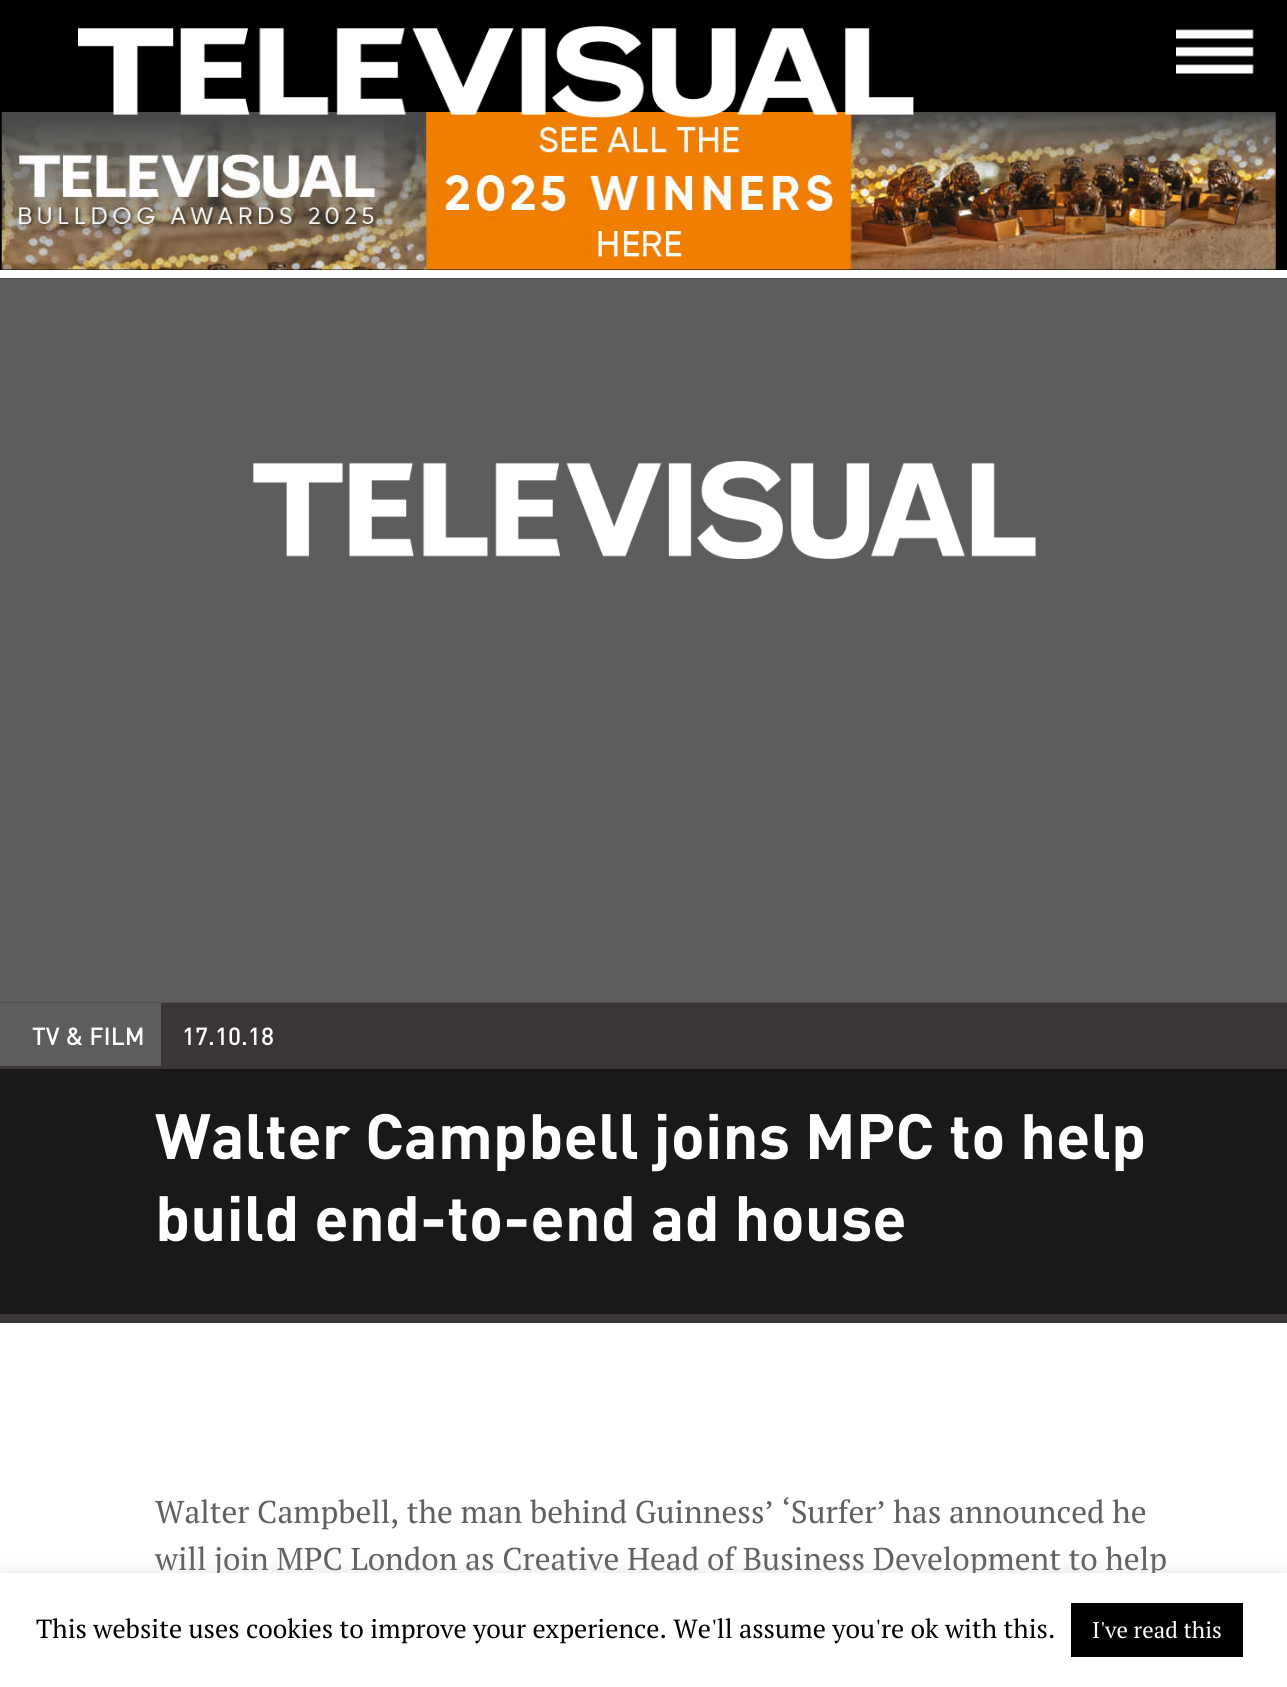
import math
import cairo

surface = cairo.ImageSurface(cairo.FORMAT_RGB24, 1287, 1687)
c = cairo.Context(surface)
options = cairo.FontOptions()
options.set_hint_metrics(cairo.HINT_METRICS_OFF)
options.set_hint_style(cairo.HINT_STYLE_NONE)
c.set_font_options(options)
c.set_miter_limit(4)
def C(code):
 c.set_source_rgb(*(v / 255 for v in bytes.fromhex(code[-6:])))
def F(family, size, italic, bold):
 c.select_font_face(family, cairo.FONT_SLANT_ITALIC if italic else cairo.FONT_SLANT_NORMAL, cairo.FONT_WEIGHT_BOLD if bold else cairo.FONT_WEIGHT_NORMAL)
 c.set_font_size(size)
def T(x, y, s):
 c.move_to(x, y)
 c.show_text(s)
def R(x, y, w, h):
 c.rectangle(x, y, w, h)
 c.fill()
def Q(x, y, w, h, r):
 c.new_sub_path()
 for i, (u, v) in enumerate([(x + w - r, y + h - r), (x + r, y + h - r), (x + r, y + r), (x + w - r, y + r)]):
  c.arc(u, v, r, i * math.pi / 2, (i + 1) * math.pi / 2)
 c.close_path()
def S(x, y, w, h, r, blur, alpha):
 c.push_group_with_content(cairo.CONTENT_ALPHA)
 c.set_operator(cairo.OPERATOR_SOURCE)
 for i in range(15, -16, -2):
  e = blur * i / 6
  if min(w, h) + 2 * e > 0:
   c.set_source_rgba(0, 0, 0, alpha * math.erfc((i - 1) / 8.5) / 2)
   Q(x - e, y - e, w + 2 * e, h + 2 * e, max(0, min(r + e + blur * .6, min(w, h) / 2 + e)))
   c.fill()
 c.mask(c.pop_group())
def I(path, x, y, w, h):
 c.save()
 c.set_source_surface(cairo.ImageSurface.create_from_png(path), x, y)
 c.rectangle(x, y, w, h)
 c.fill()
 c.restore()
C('ffffff')
c.paint()
C('000000')
R(0,0,1287,270)
I('1.png',1176,29,78,45)
I('3.png',1,112,1275,158)
I('2.png',78,26,836,92)
C('3a3637')
R(0,278,1287,1045)
I('4.png',0,278,1287,725)
C('5e5c5e')
R(0,1003,161,63)
F('DIN Medium',24.5,0,0)
C('ffffff')
T(32,1045,'TV & FILM')
T(182,1045,'17.10.18')
C('1a1819')
R(0,1069,1287,245)
F('DIN',63,0,1)
C('ffffff')
T(155,1159,'Walter Campbell joins MPC to help')
T(155,1241,'build end-to-end ad house')
F('PT Serif',31.5,0,0)
C('606060')
T(155,1523,'Walter Campbell, the man behind Guinness’ ‘Surfer’ has announced he')
T(155,1570,'will join MPC London as Creative Head of Business Development to help')
C('acabab')
S(0,1572,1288,113,0,9,.3)
C('ffffff')
R(0,1573,1287,114)
F('PT Serif',26.25,0,0)
C('000000')
T(36,1638,'This website uses cookies to improve your experience. We\'ll assume you\'re ok with this.')
R(1071,1603,172,54)
F('PT Serif',22.75,0,0)
C('ffffff')
T(1092,1638,'I\'ve read this')
surface.write_to_png('o.png')
